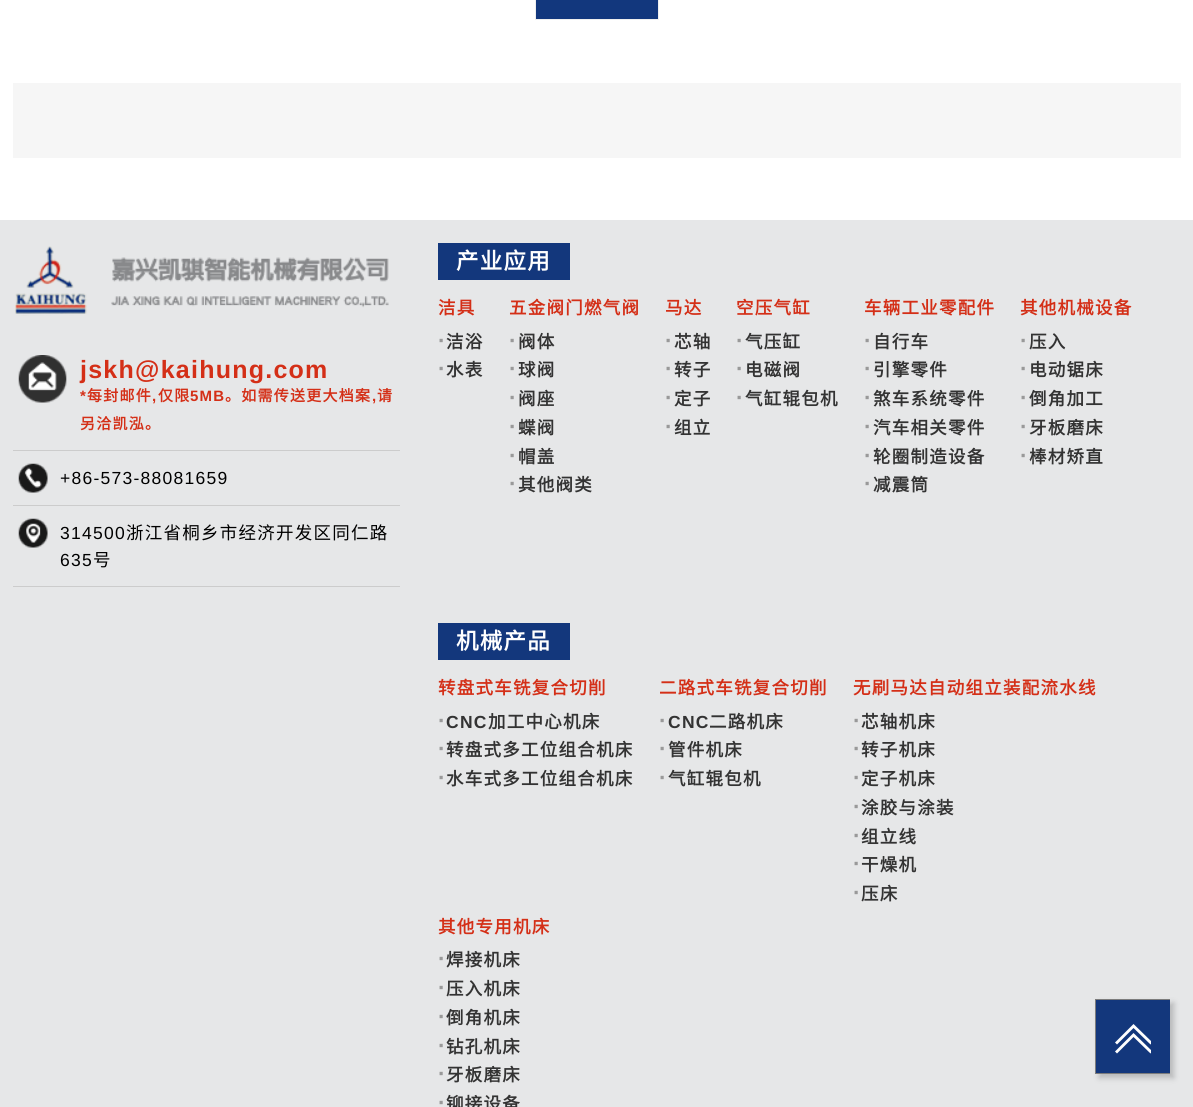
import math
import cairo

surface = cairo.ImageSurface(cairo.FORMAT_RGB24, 1193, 1107)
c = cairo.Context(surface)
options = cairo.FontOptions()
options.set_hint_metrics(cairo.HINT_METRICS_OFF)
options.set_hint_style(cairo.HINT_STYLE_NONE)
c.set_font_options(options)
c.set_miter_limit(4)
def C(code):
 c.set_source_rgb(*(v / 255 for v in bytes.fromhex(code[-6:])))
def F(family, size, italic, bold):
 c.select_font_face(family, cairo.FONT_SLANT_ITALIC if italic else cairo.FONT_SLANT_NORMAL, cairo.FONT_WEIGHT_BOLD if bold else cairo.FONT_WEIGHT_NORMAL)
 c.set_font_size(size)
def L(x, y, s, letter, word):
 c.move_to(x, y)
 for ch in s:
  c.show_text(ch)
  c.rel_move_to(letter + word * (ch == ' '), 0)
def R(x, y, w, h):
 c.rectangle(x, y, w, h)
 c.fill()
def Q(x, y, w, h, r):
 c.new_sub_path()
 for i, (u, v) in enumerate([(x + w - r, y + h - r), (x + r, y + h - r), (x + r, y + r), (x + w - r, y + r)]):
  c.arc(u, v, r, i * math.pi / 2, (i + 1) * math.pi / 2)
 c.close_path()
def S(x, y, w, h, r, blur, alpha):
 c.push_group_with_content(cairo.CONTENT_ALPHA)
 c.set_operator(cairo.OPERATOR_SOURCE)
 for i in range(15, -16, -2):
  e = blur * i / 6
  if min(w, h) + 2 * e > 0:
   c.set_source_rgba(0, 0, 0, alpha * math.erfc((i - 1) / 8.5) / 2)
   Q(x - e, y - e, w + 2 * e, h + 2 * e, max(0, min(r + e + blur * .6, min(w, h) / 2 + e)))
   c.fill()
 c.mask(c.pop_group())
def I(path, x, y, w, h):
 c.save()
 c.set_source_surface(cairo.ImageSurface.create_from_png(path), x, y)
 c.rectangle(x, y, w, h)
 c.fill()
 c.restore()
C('ffffff')
c.paint()
C('12377d')
c.rectangle(535.5,-.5,123,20)
c.fill_preserve()
C('efefef')
c.set_line_width(1)
c.stroke()
C('f6f6f6')
R(13,83,1168,75)
C('e6e7e8')
R(0,220,1193,887)
I('1.png',15,246,374,70)
C('cccccc')
R(13,450,387,1)
I('2.png',18,355,49,48)
F('Liberation Sans',25,0,1)
C('d42f17')
L(80,378,'jskh@kaihung.com',1.25,0)
F('Liberation Sans',15,0,1)
L(80,401,'*',1.25,0)
F('Noto Sans CJK SC',15,0,1)
L(87,401,'每封邮件',1.25,0)
F('Liberation Sans',15,0,1)
L(152,401,',',1.25,0)
F('Noto Sans CJK SC',15,0,1)
L(158,401,'仅限',1.25,0)
F('Liberation Sans',15,0,1)
L(190,401,'5MB',1.25,0)
F('Noto Sans CJK SC',15,0,1)
L(225,401,'。如需传送更大档案',1.25,0)
F('Liberation Sans',15,0,1)
L(372,401,',',1.25,0)
F('Noto Sans CJK SC',15,0,1)
L(377,401,'请',1.25,0)
L(80,429,'另洽凯泓。',1.25,0)
C('cccccc')
R(13,505,387,1)
I('3.png',18,463,30,30)
F('Liberation Sans',17.5,0,0)
C('000000')
L(60,484,'+86-573-88081659',1.25,0)
C('cccccc')
R(13,586,387,1)
I('4.png',18,518,30,30)
C('000000')
L(60,539,'314500',1.25,0)
F('Noto Sans CJK SC',17.5,0,0)
L(126,539,'浙江省桐乡市经济开发区同仁路',1.25,0)
F('Liberation Sans',17.5,0,0)
L(60,566,'635',1.25,0)
F('Noto Sans CJK SC',17.5,0,0)
L(93,566,'号',1.25,0)
C('13377c')
R(438,243,132,37)
F('Noto Sans CJK SC',22.5,0,1)
C('ffffff')
L(456,269,'产业应用',1.25,0)
F('Noto Sans CJK SC',17.5,0,1)
C('d42f17')
L(438,314,'洁具',1.25,0)
F('Liberation Sans',22.5,0,1)
C('999999')
L(438,348,'·',1.25,0)
F('Noto Sans CJK SC',17.5,0,1)
C('333333')
L(446,348,'洁浴',1.25,0)
F('Liberation Sans',22.5,0,1)
C('999999')
L(438,376,'·',1.25,0)
F('Noto Sans CJK SC',17.5,0,1)
C('333333')
L(446,376,'水表',1.25,0)
C('d42f17')
L(509,314,'五金阀门燃气阀',1.25,0)
F('Liberation Sans',22.5,0,1)
C('999999')
L(509,348,'·',1.25,0)
F('Noto Sans CJK SC',17.5,0,1)
C('333333')
L(518,348,'阀体',1.25,0)
F('Liberation Sans',22.5,0,1)
C('999999')
L(509,376,'·',1.25,0)
F('Noto Sans CJK SC',17.5,0,1)
C('333333')
L(518,376,'球阀',1.25,0)
F('Liberation Sans',22.5,0,1)
C('999999')
L(509,405,'·',1.25,0)
F('Noto Sans CJK SC',17.5,0,1)
C('333333')
L(518,405,'阀座',1.25,0)
F('Liberation Sans',22.5,0,1)
C('999999')
L(509,434,'·',1.25,0)
F('Noto Sans CJK SC',17.5,0,1)
C('333333')
L(518,434,'蝶阀',1.25,0)
F('Liberation Sans',22.5,0,1)
C('999999')
L(509,463,'·',1.25,0)
F('Noto Sans CJK SC',17.5,0,1)
C('333333')
L(518,463,'帽盖',1.25,0)
F('Liberation Sans',22.5,0,1)
C('999999')
L(509,491,'·',1.25,0)
F('Noto Sans CJK SC',17.5,0,1)
C('333333')
L(518,491,'其他阀类',1.25,0)
C('d42f17')
L(665,314,'马达',1.25,0)
F('Liberation Sans',22.5,0,1)
C('999999')
L(665,348,'·',1.25,0)
F('Noto Sans CJK SC',17.5,0,1)
C('333333')
L(674,348,'芯轴',1.25,0)
F('Liberation Sans',22.5,0,1)
C('999999')
L(665,376,'·',1.25,0)
F('Noto Sans CJK SC',17.5,0,1)
C('333333')
L(674,376,'转子',1.25,0)
F('Liberation Sans',22.5,0,1)
C('999999')
L(665,405,'·',1.25,0)
F('Noto Sans CJK SC',17.5,0,1)
C('333333')
L(674,405,'定子',1.25,0)
F('Liberation Sans',22.5,0,1)
C('999999')
L(665,434,'·',1.25,0)
F('Noto Sans CJK SC',17.5,0,1)
C('333333')
L(674,434,'组立',1.25,0)
C('d42f17')
L(736,314,'空压气缸',1.25,0)
F('Liberation Sans',22.5,0,1)
C('999999')
L(736,348,'·',1.25,0)
F('Noto Sans CJK SC',17.5,0,1)
C('333333')
L(745,348,'气压缸',1.25,0)
F('Liberation Sans',22.5,0,1)
C('999999')
L(736,376,'·',1.25,0)
F('Noto Sans CJK SC',17.5,0,1)
C('333333')
L(745,376,'电磁阀',1.25,0)
F('Liberation Sans',22.5,0,1)
C('999999')
L(736,405,'·',1.25,0)
F('Noto Sans CJK SC',17.5,0,1)
C('333333')
L(745,405,'气缸辊包机',1.25,0)
C('d42f17')
L(864,314,'车辆工业零配件',1.25,0)
F('Liberation Sans',22.5,0,1)
C('999999')
L(864,348,'·',1.25,0)
F('Noto Sans CJK SC',17.5,0,1)
C('333333')
L(873,348,'自行车',1.25,0)
F('Liberation Sans',22.5,0,1)
C('999999')
L(864,376,'·',1.25,0)
F('Noto Sans CJK SC',17.5,0,1)
C('333333')
L(873,376,'引擎零件',1.25,0)
F('Liberation Sans',22.5,0,1)
C('999999')
L(864,405,'·',1.25,0)
F('Noto Sans CJK SC',17.5,0,1)
C('333333')
L(873,405,'煞车系统零件',1.25,0)
F('Liberation Sans',22.5,0,1)
C('999999')
L(864,434,'·',1.25,0)
F('Noto Sans CJK SC',17.5,0,1)
C('333333')
L(873,434,'汽车相关零件',1.25,0)
F('Liberation Sans',22.5,0,1)
C('999999')
L(864,463,'·',1.25,0)
F('Noto Sans CJK SC',17.5,0,1)
C('333333')
L(873,463,'轮圈制造设备',1.25,0)
F('Liberation Sans',22.5,0,1)
C('999999')
L(864,491,'·',1.25,0)
F('Noto Sans CJK SC',17.5,0,1)
C('333333')
L(873,491,'减震筒',1.25,0)
C('d42f17')
L(1020,314,'其他机械设备',1.25,0)
F('Liberation Sans',22.5,0,1)
C('999999')
L(1020,348,'·',1.25,0)
F('Noto Sans CJK SC',17.5,0,1)
C('333333')
L(1029,348,'压入',1.25,0)
F('Liberation Sans',22.5,0,1)
C('999999')
L(1020,376,'·',1.25,0)
F('Noto Sans CJK SC',17.5,0,1)
C('333333')
L(1029,376,'电动锯床',1.25,0)
F('Liberation Sans',22.5,0,1)
C('999999')
L(1020,405,'·',1.25,0)
F('Noto Sans CJK SC',17.5,0,1)
C('333333')
L(1029,405,'倒角加工',1.25,0)
F('Liberation Sans',22.5,0,1)
C('999999')
L(1020,434,'·',1.25,0)
F('Noto Sans CJK SC',17.5,0,1)
C('333333')
L(1029,434,'牙板磨床',1.25,0)
F('Liberation Sans',22.5,0,1)
C('999999')
L(1020,463,'·',1.25,0)
F('Noto Sans CJK SC',17.5,0,1)
C('333333')
L(1029,463,'棒材矫直',1.25,0)
C('13377c')
R(438,623,132,37)
F('Noto Sans CJK SC',22.5,0,1)
C('ffffff')
L(456,649,'机械产品',1.25,0)
F('Noto Sans CJK SC',17.5,0,1)
C('d42f17')
L(438,694,'转盘式车铣复合切削',1.25,0)
F('Liberation Sans',22.5,0,1)
C('999999')
L(438,728,'·',1.25,0)
F('Liberation Sans',17.5,0,1)
C('333333')
L(446,728,'CNC',1.25,0)
F('Noto Sans CJK SC',17.5,0,1)
L(488,728,'加工中心机床',1.25,0)
F('Liberation Sans',22.5,0,1)
C('999999')
L(438,756,'·',1.25,0)
F('Noto Sans CJK SC',17.5,0,1)
C('333333')
L(446,756,'转盘式多工位组合机床',1.25,0)
F('Liberation Sans',22.5,0,1)
C('999999')
L(438,785,'·',1.25,0)
F('Noto Sans CJK SC',17.5,0,1)
C('333333')
L(446,785,'水车式多工位组合机床',1.25,0)
C('d42f17')
L(659,694,'二路式车铣复合切削',1.25,0)
F('Liberation Sans',22.5,0,1)
C('999999')
L(659,728,'·',1.25,0)
F('Liberation Sans',17.5,0,1)
C('333333')
L(668,728,'CNC',1.25,0)
F('Noto Sans CJK SC',17.5,0,1)
L(709,728,'二路机床',1.25,0)
F('Liberation Sans',22.5,0,1)
C('999999')
L(659,756,'·',1.25,0)
F('Noto Sans CJK SC',17.5,0,1)
C('333333')
L(668,756,'管件机床',1.25,0)
F('Liberation Sans',22.5,0,1)
C('999999')
L(659,785,'·',1.25,0)
F('Noto Sans CJK SC',17.5,0,1)
C('333333')
L(668,785,'气缸辊包机',1.25,0)
C('d42f17')
L(853,694,'无刷马达自动组立装配流水线',1.25,0)
F('Liberation Sans',22.5,0,1)
C('999999')
L(853,728,'·',1.25,0)
F('Noto Sans CJK SC',17.5,0,1)
C('333333')
L(861,728,'芯轴机床',1.25,0)
F('Liberation Sans',22.5,0,1)
C('999999')
L(853,756,'·',1.25,0)
F('Noto Sans CJK SC',17.5,0,1)
C('333333')
L(861,756,'转子机床',1.25,0)
F('Liberation Sans',22.5,0,1)
C('999999')
L(853,785,'·',1.25,0)
F('Noto Sans CJK SC',17.5,0,1)
C('333333')
L(861,785,'定子机床',1.25,0)
F('Liberation Sans',22.5,0,1)
C('999999')
L(853,814,'·',1.25,0)
F('Noto Sans CJK SC',17.5,0,1)
C('333333')
L(861,814,'涂胶与涂装',1.25,0)
F('Liberation Sans',22.5,0,1)
C('999999')
L(853,843,'·',1.25,0)
F('Noto Sans CJK SC',17.5,0,1)
C('333333')
L(861,843,'组立线',1.25,0)
F('Liberation Sans',22.5,0,1)
C('999999')
L(853,871,'·',1.25,0)
F('Noto Sans CJK SC',17.5,0,1)
C('333333')
L(861,871,'干燥机',1.25,0)
F('Liberation Sans',22.5,0,1)
C('999999')
L(853,900,'·',1.25,0)
F('Noto Sans CJK SC',17.5,0,1)
C('333333')
L(861,900,'压床',1.25,0)
C('d42f17')
L(438,933,'其他专用机床',1.25,0)
F('Liberation Sans',22.5,0,1)
C('999999')
L(438,966,'·',1.25,0)
F('Noto Sans CJK SC',17.5,0,1)
C('333333')
L(446,966,'焊接机床',1.25,0)
F('Liberation Sans',22.5,0,1)
C('999999')
L(438,995,'·',1.25,0)
F('Noto Sans CJK SC',17.5,0,1)
C('333333')
L(446,995,'压入机床',1.25,0)
F('Liberation Sans',22.5,0,1)
C('999999')
L(438,1024,'·',1.25,0)
F('Noto Sans CJK SC',17.5,0,1)
C('333333')
L(446,1024,'倒角机床',1.25,0)
F('Liberation Sans',22.5,0,1)
C('999999')
L(438,1053,'·',1.25,0)
F('Noto Sans CJK SC',17.5,0,1)
C('333333')
L(446,1053,'钻孔机床',1.25,0)
F('Liberation Sans',22.5,0,1)
C('999999')
L(438,1081,'·',1.25,0)
F('Noto Sans CJK SC',17.5,0,1)
C('333333')
L(446,1081,'牙板磨床',1.25,0)
F('Liberation Sans',22.5,0,1)
C('999999')
L(438,1110,'·',1.25,0)
F('Noto Sans CJK SC',17.5,0,1)
C('333333')
L(446,1110,'铆接设备',1.25,0)
C('000000')
S(1099,1003,75,75,0,3,.2)
C('13377c')
R(1096,1000,74,73)
C('7c7c7c')
R(1095,999,75,1)
R(1095,1073,75,1)
R(1095,999,1,75)
c.save()
c.rectangle(1115,1020,36,38)
c.clip()
C('ffffff')
c.new_path()
c.move_to(1133.5,1028)
c.line_to(1150.5,1044.5)
c.line_to(1152.5,1042.5)
c.line_to(1133.5,1024)
c.line_to(1115,1042.5)
c.line_to(1117,1044.5)
c.close_path()
c.fill()
c.new_path()
c.move_to(1115,1051.5)
c.line_to(1117,1053.5)
c.line_to(1133.5,1037)
c.line_to(1150.5,1053.5)
c.line_to(1152.5,1051.5)
c.line_to(1133.5,1033)
c.close_path()
c.fill()
c.restore()
surface.write_to_png('o.png')
